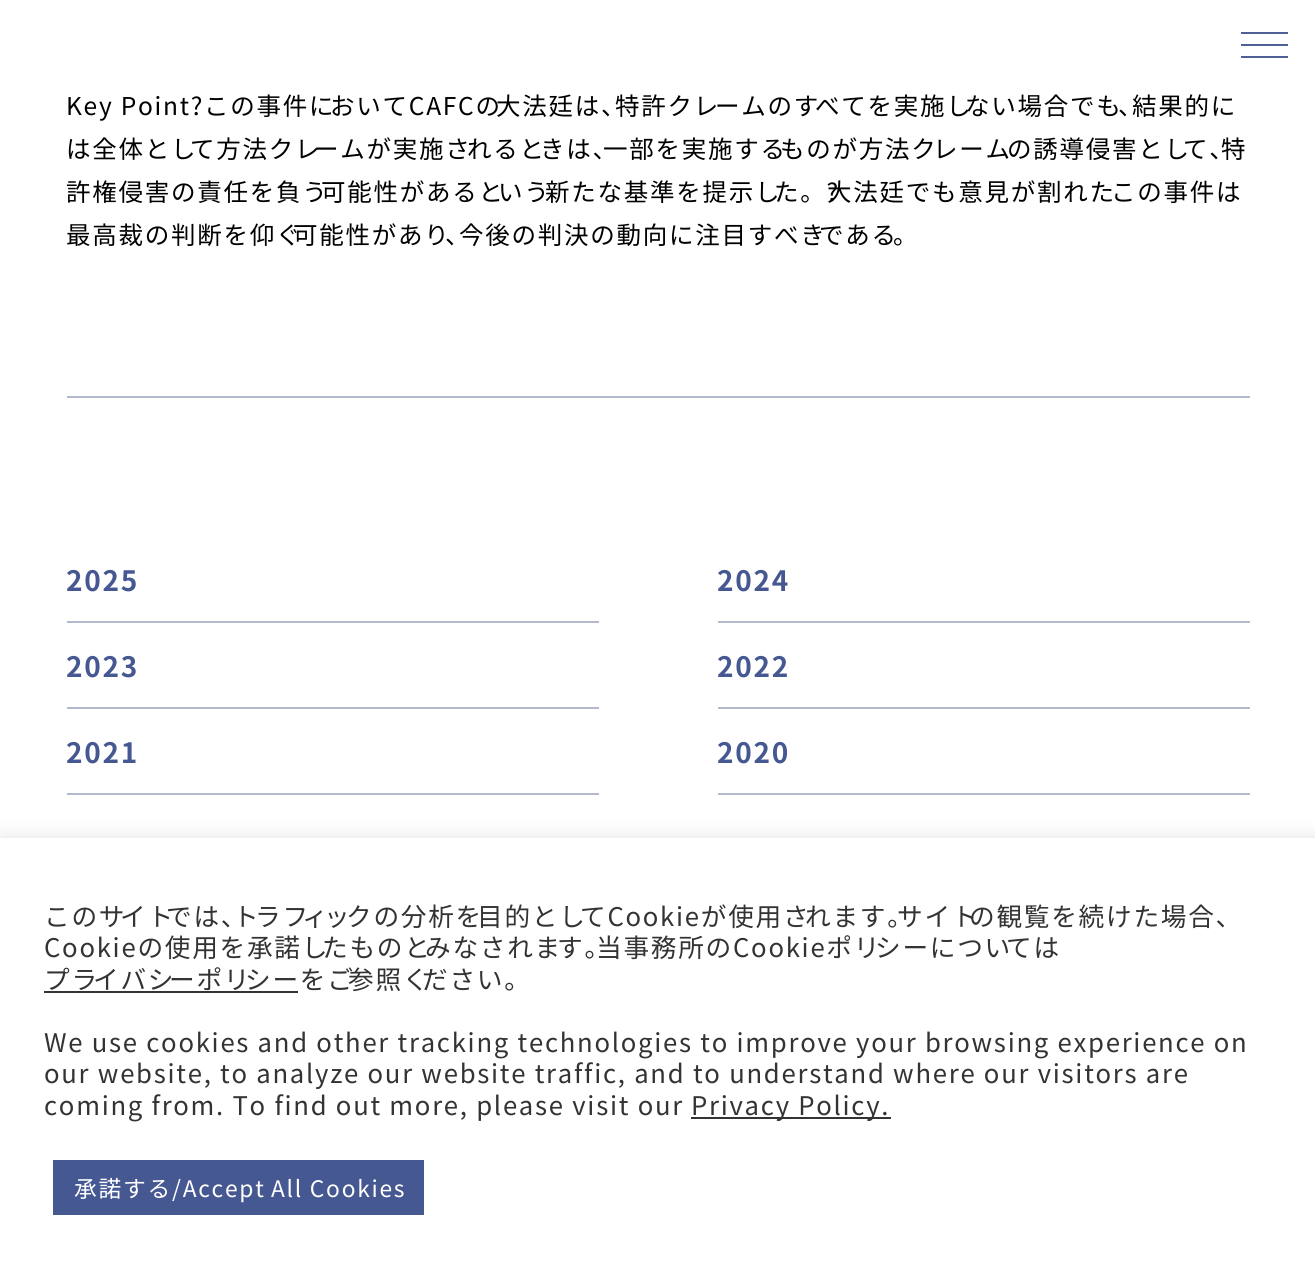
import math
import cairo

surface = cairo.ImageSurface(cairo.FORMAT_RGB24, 1315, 1267)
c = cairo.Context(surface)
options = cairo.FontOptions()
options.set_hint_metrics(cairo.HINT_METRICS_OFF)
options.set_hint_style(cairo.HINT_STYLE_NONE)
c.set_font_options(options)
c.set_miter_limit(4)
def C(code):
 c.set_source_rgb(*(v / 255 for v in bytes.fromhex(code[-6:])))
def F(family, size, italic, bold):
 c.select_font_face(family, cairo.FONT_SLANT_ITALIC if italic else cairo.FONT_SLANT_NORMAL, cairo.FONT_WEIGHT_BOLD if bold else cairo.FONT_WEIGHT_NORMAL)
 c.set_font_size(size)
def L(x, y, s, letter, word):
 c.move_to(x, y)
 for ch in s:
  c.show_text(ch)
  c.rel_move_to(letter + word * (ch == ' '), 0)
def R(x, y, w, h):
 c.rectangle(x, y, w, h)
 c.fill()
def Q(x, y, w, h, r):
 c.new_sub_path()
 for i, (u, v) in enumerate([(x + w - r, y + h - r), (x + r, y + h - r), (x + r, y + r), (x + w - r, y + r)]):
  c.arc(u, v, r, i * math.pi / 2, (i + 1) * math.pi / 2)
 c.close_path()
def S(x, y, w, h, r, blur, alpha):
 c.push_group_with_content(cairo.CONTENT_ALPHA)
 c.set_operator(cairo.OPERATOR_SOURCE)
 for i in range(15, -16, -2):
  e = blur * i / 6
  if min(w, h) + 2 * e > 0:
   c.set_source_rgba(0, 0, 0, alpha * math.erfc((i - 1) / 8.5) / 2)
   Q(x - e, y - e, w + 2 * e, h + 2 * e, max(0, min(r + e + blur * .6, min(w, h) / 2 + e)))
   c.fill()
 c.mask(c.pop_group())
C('ffffff')
c.paint()
C('4f6097')
R(1241,44,47,2)
R(1241,32,47,2)
R(1241,56,47,2)
F('Noto Sans JP',24.5,0,0)
C('000000')
L(66,115,'Key Point?この事件に',1.75,0)
L(330,115,'おいてCAFCの',1.75,0)
L(496,115,'大法廷は、',1.75,0)
L(615,115,'特許クレ',1.75,0)
L(715,115,'ームのす',1.75,0)
L(815,115,'べてを実施し',1.75,0)
L(965,115,'ない場合でも',1.75,0)
L(1118,115,'、',1.75,0)
L(1132,115,'結果的に',1.75,0)
L(66,158,'は全体とし',1.75,0)
L(190,158,'て方法クレ',1.75,0)
L(314,158,'ームが実施さ',1.75,0)
L(467,158,'れると',1.75,0)
L(540,158,'きは、',1.75,0)
L(603,158,'一部を実施する',1.75,0)
L(780,158,'ものが方法ク',1.75,0)
L(933,158,'レーム',1.75,0)
L(1007,158,'の誘導侵害とし',1.75,0)
L(1183,158,'て、',1.75,0)
L(1221,158,'特',1.75,0)
L(66,201,'許権侵害の責任を負う',1.75,0)
L(321,201,'可能性があると',1.75,0)
L(498,201,'いう',1.75,0)
L(545,201,'新たな基準を提示し',1.75,0)
L(774,201,'た。?',1.75,0)
L(827,201,'大法廷でも意見が割れた',1.75,0)
L(1111,201,'この事件は',1.75,0)
L(66,244,'最高裁の判断を仰ぐ',1.75,0)
L(293,244,'可能性があり',1.75,0)
L(445,244,'、',1.75,0)
L(459,244,'今後の判決の動向に注目すべき',1.75,0)
L(819,244,'である',1.75,0)
L(893,244,'。',1.75,0)
C('b3bad0')
R(67,396,1183,2)
R(67,621,532,2)
F('Noto Sans JP',28,0,1)
C('465891')
L(66,591,'2025',1.75,0)
C('b3bad0')
R(718,621,532,2)
C('465891')
L(717,591,'2024',1.75,0)
C('b3bad0')
R(67,707,532,2)
C('465891')
L(66,677,'2023',1.75,0)
C('b3bad0')
R(718,707,532,2)
C('465891')
L(717,677,'2022',1.75,0)
C('b3bad0')
R(67,793,532,2)
C('465891')
L(66,763,'2021',1.75,0)
C('b3bad0')
R(718,793,532,2)
C('465891')
L(717,763,'2020',1.75,0)
C('acabab')
S(0,837,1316,428,0,9,.3)
C('ffffff')
R(0,838,1315,429)
F('Noto Sans JP',25.65,0,0)
C('333333')
L(44,926,'このサ',1.75,0)
L(120,926,'イト',1.75,0)
L(166,926,'では、',1.75,0)
L(233,926,'ト',1.75,0)
L(255,926,'ラフ',1.75,0)
L(302,926,'ィ',1.75,0)
L(324,926,'ッ',1.75,0)
L(346,926,'クの分析を',1.75,0)
L(477,926,'目的とし',1.75,0)
L(580,926,'てCookieが使用さ',1.75,0)
L(805,926,'れます。',1.75,0)
L(897,926,'サイト',1.75,0)
L(969,926,'の観覧を続けた場合、',1.75,0)
L(44,957,'Cookieの使用を承諾し',1.75,0)
L(322,957,'たものと',1.75,0)
L(425,957,'みなされま',1.75,0)
L(557,957,'す。',1.75,0)
L(596,957,'当事務所のCookieポリ',1.75,0)
L(875,957,'シーについ',1.75,0)
L(1006,957,'ては',1.75,0)
R(44,991,254,2)
L(44,989,'プラ',1.75,0)
L(93,989,'イバシ',1.75,0)
L(169,989,'ーポリ',1.75,0)
L(245,989,'シーをご',1.75,0)
L(348,989,'参照く',1.75,0)
L(422,989,'ださい。',1.75,0)
L(44,1052,'We use cookies and other tracking technologies to improve your browsing experience on',1.75,0)
L(44,1083,'our website, to analyze our website traffic, and to understand where our visitors are',1.75,0)
L(44,1115,'coming from. To find out more, please visit our',1.75,0)
R(691,1117,200,2)
L(691,1115,'Privacy Policy.',1.75,0)
C('465891')
R(53,1160,371,55)
F('Noto Sans JP',22.75,0,0)
C('ffffff')
L(74,1197,'承諾する/Accept',1.75,0)
L(271,1197,'All Cookies',1.75,0)
surface.write_to_png('o.png')
